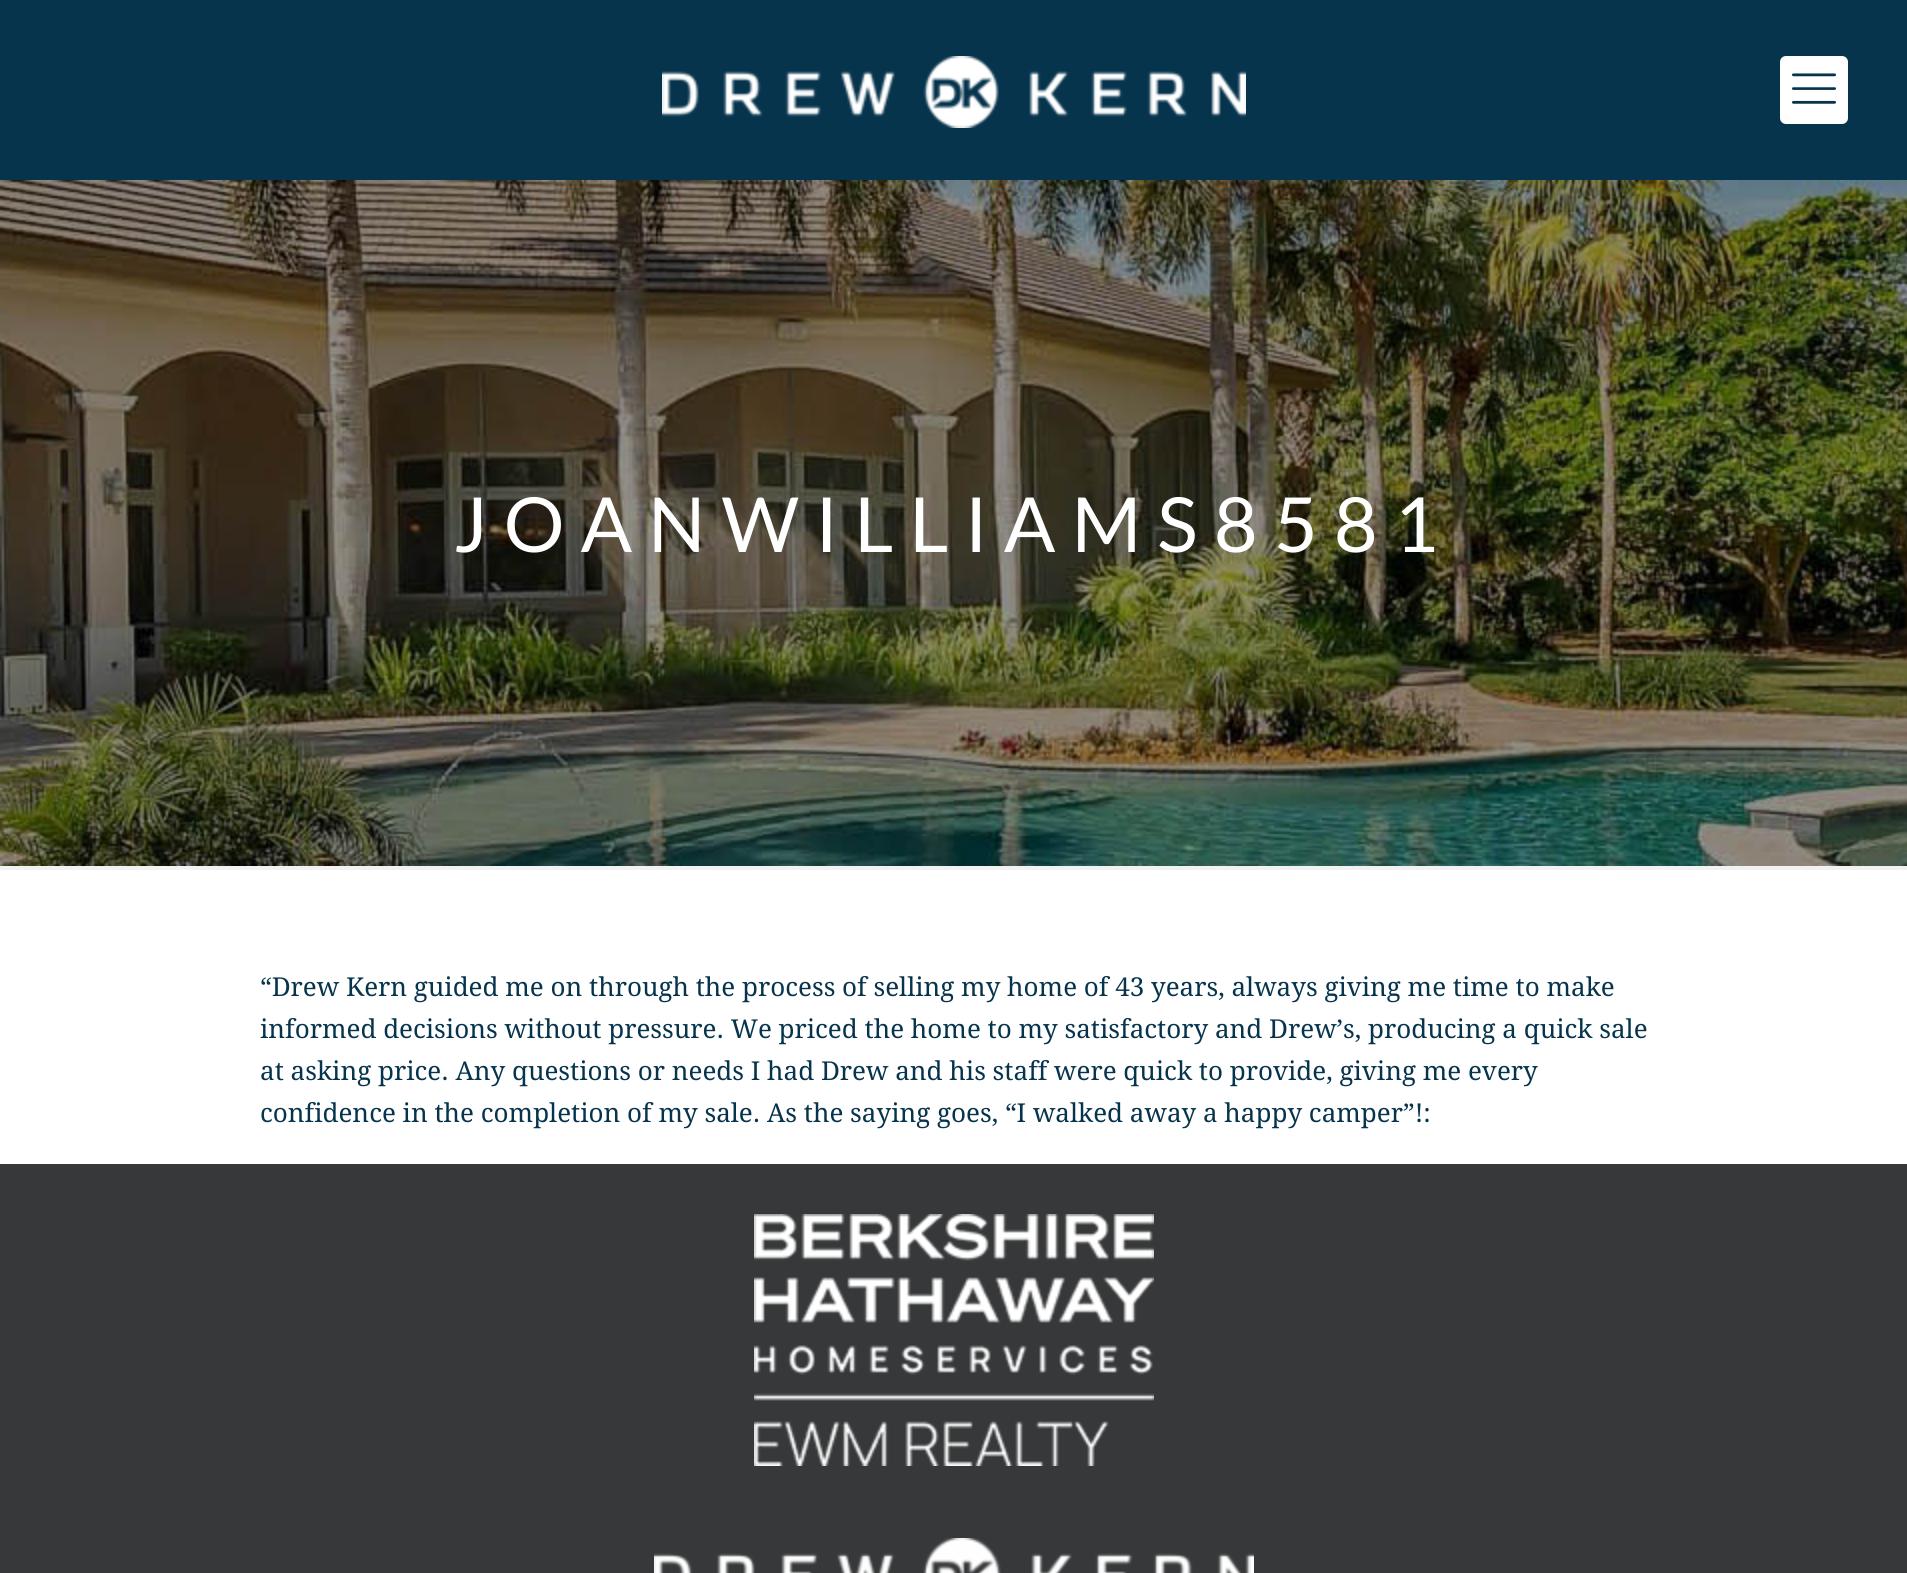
import math
import cairo

surface = cairo.ImageSurface(cairo.FORMAT_RGB24, 1907, 1573)
c = cairo.Context(surface)
options = cairo.FontOptions()
options.set_hint_metrics(cairo.HINT_METRICS_OFF)
options.set_hint_style(cairo.HINT_STYLE_NONE)
c.set_font_options(options)
c.set_miter_limit(4)
def C(code):
 c.set_source_rgb(*(v / 255 for v in bytes.fromhex(code[-6:])))
def F(family, size, italic, bold):
 c.select_font_face(family, cairo.FONT_SLANT_ITALIC if italic else cairo.FONT_SLANT_NORMAL, cairo.FONT_WEIGHT_BOLD if bold else cairo.FONT_WEIGHT_NORMAL)
 c.set_font_size(size)
def T(x, y, s):
 c.move_to(x, y)
 c.show_text(s)
def L(x, y, s, letter, word):
 c.move_to(x, y)
 for ch in s:
  c.show_text(ch)
  c.rel_move_to(letter + word * (ch == ' '), 0)
def R(x, y, w, h):
 c.rectangle(x, y, w, h)
 c.fill()
def Q(x, y, w, h, r):
 c.new_sub_path()
 for i, (u, v) in enumerate([(x + w - r, y + h - r), (x + r, y + h - r), (x + r, y + r), (x + w - r, y + r)]):
  c.arc(u, v, r, i * math.pi / 2, (i + 1) * math.pi / 2)
 c.close_path()
def I(path, x, y, w, h):
 c.save()
 c.set_source_surface(cairo.ImageSurface.create_from_png(path), x, y)
 c.rectangle(x, y, w, h)
 c.fill()
 c.restore()
C('ffffff')
c.paint()
C('07344d')
R(0,0,1907,180)
I('1.png',662,56,584,72)
C('ffffff')
Q(1780,56,68,68,6)
c.fill()
I('2.png',1792,73,44,31)
I('3.png',0,180,1907,686)
F('Lato',76,0,0)
L(454,552,'JOANWILLIAMS8581',16,0)
C('f2f2f2')
R(0,866,1907,4)
F('Droid Serif',26,0,0)
C('07344d')
T(260,996,'“Drew Kern guided me on through the process of selling my home of 43 years, always giving me time to make')
T(260,1038,'informed decisions without pressure. We priced the home to my satisfactory and Drew’s, producing a quick sale')
T(260,1080,'at asking price. Any questions or needs I had Drew and his staff were quick to provide, giving me every')
T(260,1122,'confidence in the completion of my sale. As the saying goes, “I walked away a happy camper”!:')
C('363839')
R(0,1164,1907,409)
I('4.png',754,1214,400,252)
I('5.png',654,1538,600,35)
surface.write_to_png('o.png')
